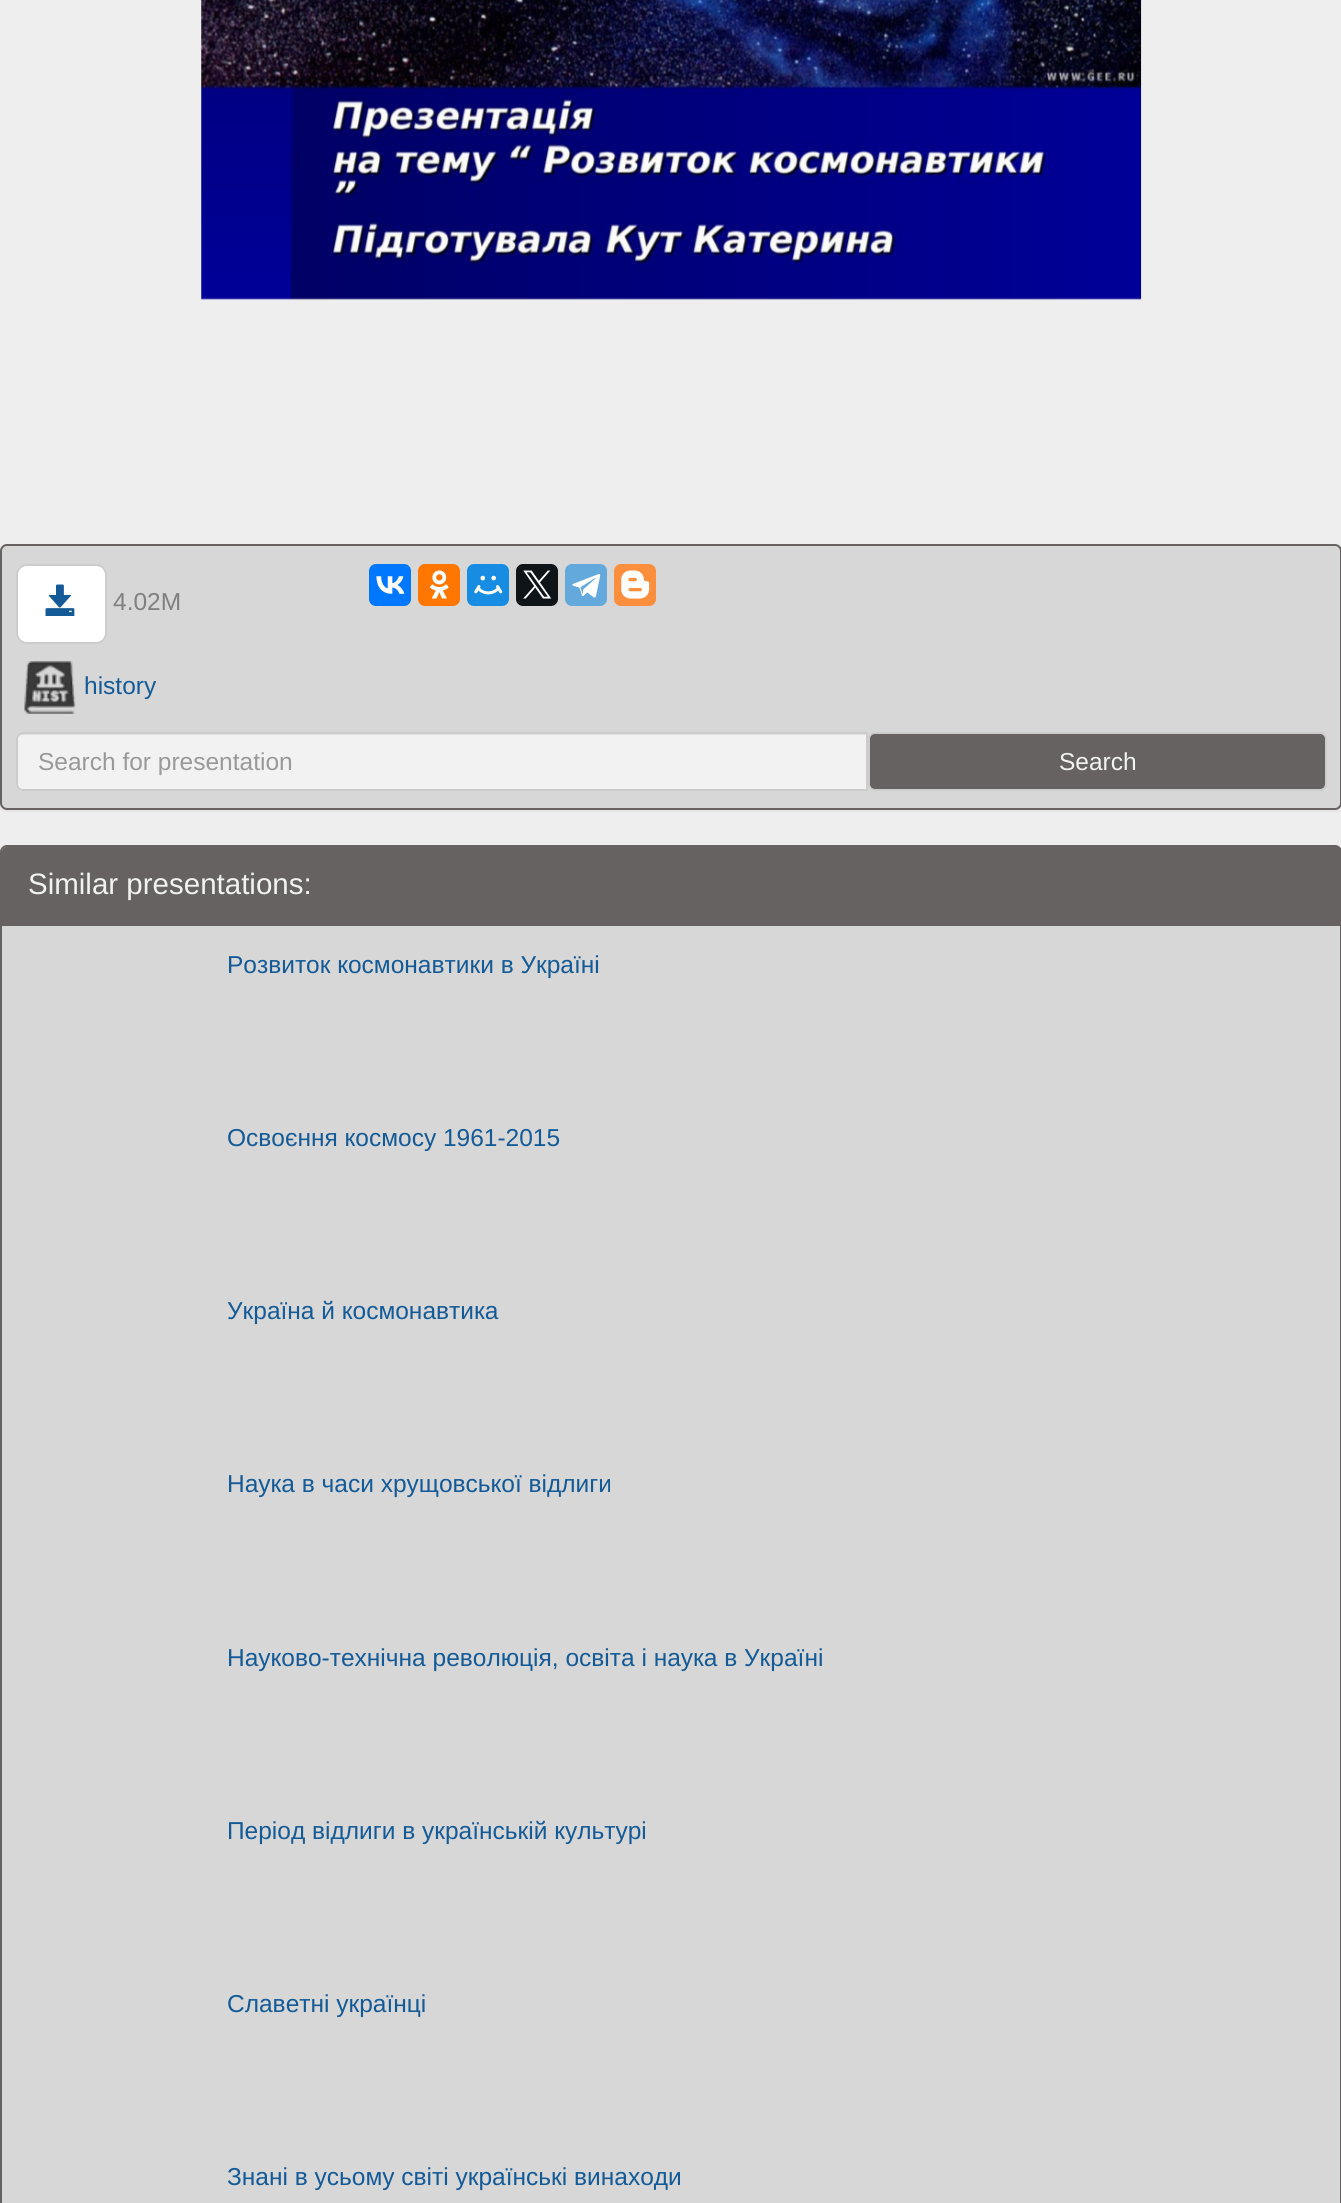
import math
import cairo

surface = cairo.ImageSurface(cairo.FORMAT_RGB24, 1341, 2203)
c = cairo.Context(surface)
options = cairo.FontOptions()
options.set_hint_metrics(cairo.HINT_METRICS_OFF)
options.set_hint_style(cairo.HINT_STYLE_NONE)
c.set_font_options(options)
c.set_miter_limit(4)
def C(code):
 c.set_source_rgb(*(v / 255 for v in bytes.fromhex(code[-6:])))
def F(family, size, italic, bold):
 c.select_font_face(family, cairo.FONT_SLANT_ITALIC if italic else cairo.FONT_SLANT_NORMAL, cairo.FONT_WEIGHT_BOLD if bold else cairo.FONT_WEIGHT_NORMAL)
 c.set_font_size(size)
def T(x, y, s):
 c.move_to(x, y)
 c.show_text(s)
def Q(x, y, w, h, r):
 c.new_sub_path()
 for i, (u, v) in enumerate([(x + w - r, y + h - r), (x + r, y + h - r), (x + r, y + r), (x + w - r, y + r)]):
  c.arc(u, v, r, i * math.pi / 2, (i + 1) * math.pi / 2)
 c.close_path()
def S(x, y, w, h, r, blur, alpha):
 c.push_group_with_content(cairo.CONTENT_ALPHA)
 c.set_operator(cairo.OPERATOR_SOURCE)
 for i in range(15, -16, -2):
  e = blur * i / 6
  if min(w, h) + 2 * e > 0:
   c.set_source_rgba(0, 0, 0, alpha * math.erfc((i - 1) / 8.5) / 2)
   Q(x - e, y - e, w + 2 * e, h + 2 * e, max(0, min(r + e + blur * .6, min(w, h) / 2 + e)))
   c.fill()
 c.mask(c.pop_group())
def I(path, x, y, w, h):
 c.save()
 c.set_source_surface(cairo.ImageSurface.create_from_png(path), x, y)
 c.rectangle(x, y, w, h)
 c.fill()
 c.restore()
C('eeeeee')
c.paint()
I('1.png',201,0,941,300)
C('000000')
S(0,546,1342,266,7,1,.05)
C('d7d7d7')
Q(1,545,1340,264,6)
c.fill_preserve()
C('676262')
c.stroke()
C('ffffff')
Q(17,565,89,78,10)
c.fill_preserve()
C('cccccc')
c.stroke()
I('2.png',45,584,30,32)
F('Liberation Sans',24.5,0,0)
C('808080')
T(113,610,'4.02M')
C('0077ff')
Q(369,564,42,42,7)
c.fill()
I('3.png',376,576,29,18)
C('ff7700')
Q(418,564,42,42,7)
c.fill()
I('4.png',429,570,20,29)
C('168de2')
Q(467,564,42,42,7)
c.fill()
I('5.png',474,575,29,20)
C('0f1419')
Q(516,564,42,42,7)
c.fill()
I('6.png',523,570,29,29)
C('64a9dc')
Q(565,564,42,42,7)
c.fill()
I('7.png',572,574,29,24)
C('fb8f3d')
Q(614,564,42,42,7)
c.fill()
I('8.png',621,570,29,29)
I('9.png',24,661,52,53)
C('135a97')
T(84,694,'history')
C('f2f2f2')
c.new_path()
c.move_to(23,732)
c.line_to(868,732)
c.line_to(868,791)
c.line_to(23,791)
c.curve_to(19,791,16,788,16,784)
c.line_to(16,739)
c.curve_to(16,735,19,732,23,732)
c.close_path()
c.fill()
C('e0e0e0')
c.new_path()
c.move_to(23,735)
c.line_to(866,735)
c.line_to(866,733)
c.line_to(23,733)
c.curve_to(19,733,18,737,18,740)
c.curve_to(18,737,20,735,23,735)
c.close_path()
c.fill()
c.new_path()
c.move_to(23,733)
c.line_to(867,733)
c.line_to(867,790)
c.line_to(23,790)
c.curve_to(19.5,790,17,787.5,17,784)
c.line_to(17,739)
c.curve_to(17,735.5,19.5,733,23,733)
c.close_path()
C('cccccc')
c.stroke()
C('999999')
T(38,770,'Search for presentation')
C('676262')
Q(869,733,457,57,6)
c.fill_preserve()
C('cccccc')
c.stroke()
C('f2f2f2')
T(1059,770,'Search')
C('d7d7d7')
Q(1,846,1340,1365,6)
c.fill_preserve()
C('676262')
c.stroke()
c.new_path()
c.move_to(7,847)
c.line_to(1336,847)
c.curve_to(1339,847,1341,849,1341,852)
c.line_to(1341,926)
c.line_to(2,926)
c.line_to(2,852)
c.curve_to(2,849,4,847,7,847)
c.close_path()
c.fill()
F('Liberation Sans',29.5,0,0)
C('f2f2f2')
T(28,894,'Similar presentations:')
F('Liberation Sans',24.5,0,0)
C('135a97')
T(227,973,'Розвиток космонавтики в Україні')
T(227,1146,'Освоєння космосу 1961-2015')
T(227,1319,'Україна й космонавтика')
T(227,1492,'Наука в часи хрущовської відлиги')
T(227,1666,'Науково-технічна революція, освіта і наука в Україні')
T(227,1839,'Період відлиги в українській культурі')
T(227,2012,'Славетні українці')
T(227,2185,'Знані в усьому світі українські винаходи')
surface.write_to_png('o.png')
